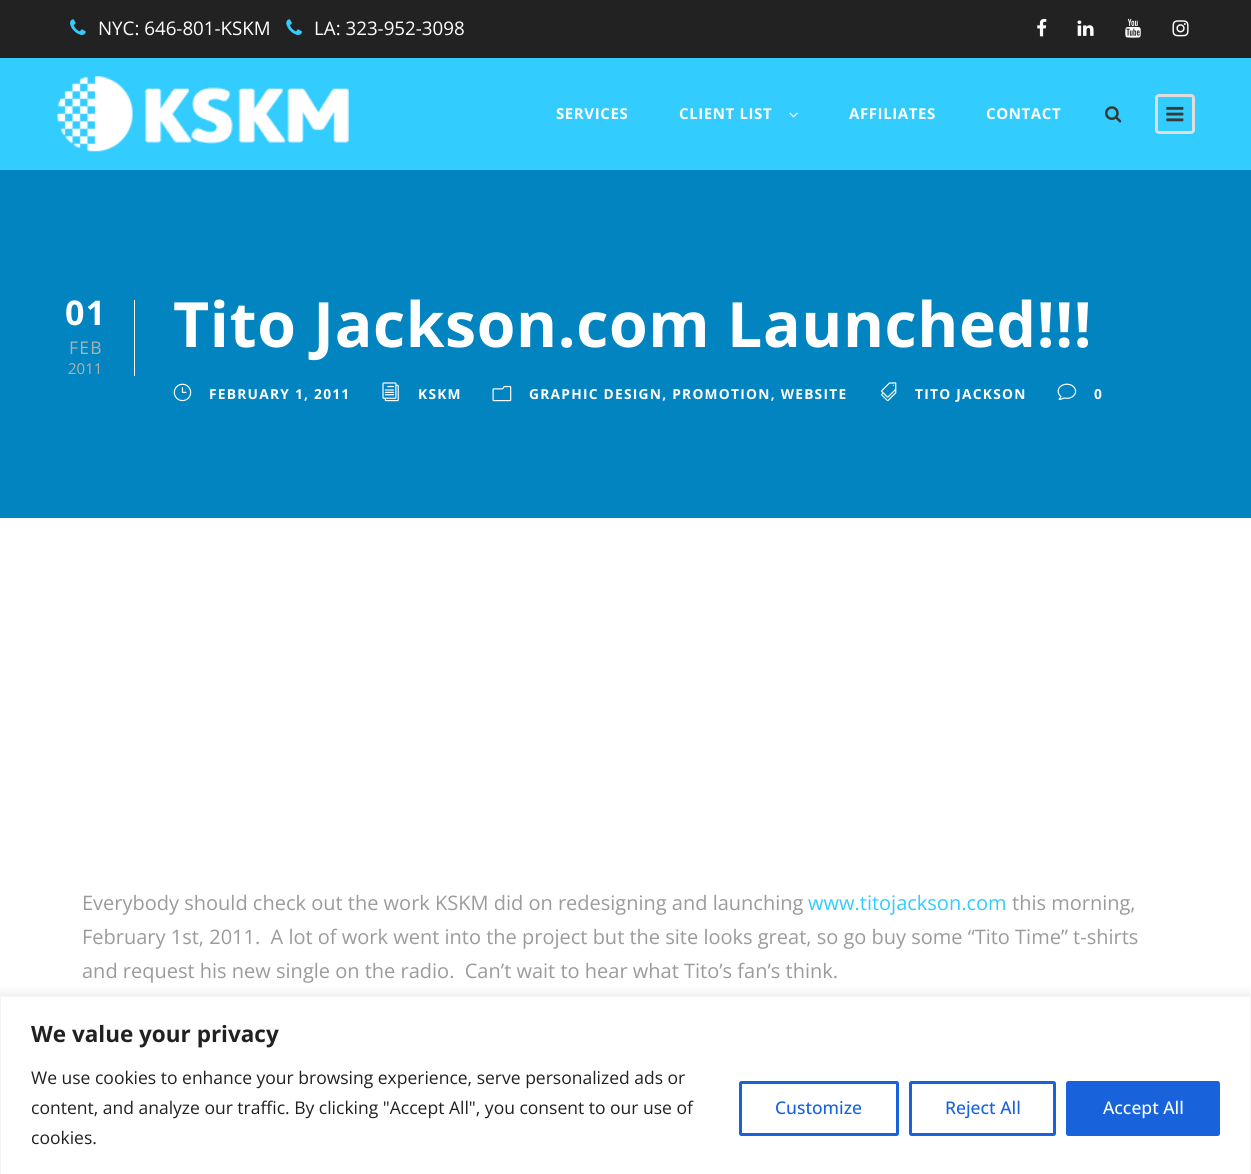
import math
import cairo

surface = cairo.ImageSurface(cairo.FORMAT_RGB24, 1251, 1174)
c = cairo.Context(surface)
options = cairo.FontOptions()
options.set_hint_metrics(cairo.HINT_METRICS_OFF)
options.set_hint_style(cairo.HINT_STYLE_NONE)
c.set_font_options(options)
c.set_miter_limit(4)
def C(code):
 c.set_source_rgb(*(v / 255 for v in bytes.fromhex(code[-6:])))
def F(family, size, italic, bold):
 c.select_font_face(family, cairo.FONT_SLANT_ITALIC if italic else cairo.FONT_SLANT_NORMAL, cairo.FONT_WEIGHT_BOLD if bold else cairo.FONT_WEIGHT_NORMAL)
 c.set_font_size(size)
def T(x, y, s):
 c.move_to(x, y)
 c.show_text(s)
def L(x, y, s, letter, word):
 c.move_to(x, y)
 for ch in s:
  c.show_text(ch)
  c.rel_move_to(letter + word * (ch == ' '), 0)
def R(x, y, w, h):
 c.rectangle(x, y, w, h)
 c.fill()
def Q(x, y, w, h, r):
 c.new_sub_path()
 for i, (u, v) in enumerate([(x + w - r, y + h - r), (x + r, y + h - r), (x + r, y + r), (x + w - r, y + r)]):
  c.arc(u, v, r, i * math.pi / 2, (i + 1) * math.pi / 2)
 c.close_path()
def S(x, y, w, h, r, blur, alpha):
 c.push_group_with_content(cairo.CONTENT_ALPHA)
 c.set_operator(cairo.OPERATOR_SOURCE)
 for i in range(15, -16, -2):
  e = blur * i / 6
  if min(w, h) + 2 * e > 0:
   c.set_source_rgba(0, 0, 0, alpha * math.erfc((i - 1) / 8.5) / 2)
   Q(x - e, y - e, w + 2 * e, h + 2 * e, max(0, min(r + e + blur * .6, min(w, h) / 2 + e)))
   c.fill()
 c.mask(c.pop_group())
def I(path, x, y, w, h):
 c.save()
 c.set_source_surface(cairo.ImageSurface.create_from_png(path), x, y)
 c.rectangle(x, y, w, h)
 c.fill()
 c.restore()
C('ffffff')
c.paint()
C('222222')
R(0,0,1251,58)
I('1.png',70,19,16,16)
F('Open Sans',18.75,0,0)
C('ffffff')
T(98,35,'NYC: 646-801-KSKM')
I('2.png',286,19,16,16)
T(314,35,'LA: 323-952-3098')
I('3.png',1037,18,10,19)
I('4.png',1077,20,17,16)
I('5.png',1125,18,16,20)
I('6.png',1172,20,17,17)
C('33ccff')
R(0,58,1251,112)
I('7.png',57,76,292,76)
F('Open Sans',15,0,1)
C('ffffff')
L(556,119,'SERVICES',.6,0)
L(679,119,'CLIENT LIST',.6,0)
I('8.png',789,112,9,6)
L(849,119,'AFFILIATES',.6,0)
L(986,119,'CONTACT',.6,0)
I('9.png',1105,106,17,17)
Q(1156.5,95.5,37,37,2.5)
C('dddddd')
c.set_line_width(3)
c.stroke()
I('10.png',1166,106,18,16)
C('0184c0')
R(0,170,1251,348)
C('ffffff')
R(134,300,1,76)
F('Open Sans',34,0,1)
L(65,325,'01',1.25,0)
F('Open Sans',17.5,0,0)
C('b1b1b1')
L(69,354,'FEB',1.25,0)
F('Open Sans',15,0,0)
T(68,374,'2011')
F('Open Sans',62.5,0,1)
C('ffffff')
L(173,347,'Tito Jackson.com Launched!!!',.6,0)
I('11.png',173,383,19,19)
F('Open Sans',13.75,0,1)
L(209,399,'FEBRUARY 1, 2011',1.25,0)
I('12.png',382,382,17,20)
L(418,399,'KSKM',1.25,0)
I('13.png',492,385,20,17)
L(529,399,'GRAPHIC DESIGN, PROMOTION, WEBSITE',1.25,0)
I('14.png',881,382,16,20)
L(915,399,'TITO JACKSON',1.25,0)
I('15.png',1057,383,20,17)
L(1094,399,'0',1.25,0)
F('Open Sans',20,0,0)
C('9b9b9b')
T(82,910,'Everybody should check out the work KSKM did on redesigning and launching')
C('33ccff')
T(808,910,'www.titojackson.com')
C('9b9b9b')
T(1012,910,'this morning,')
T(82,944,'February 1st, 2011.  A lot of work went into the project but the site looks great, so go buy some “Tito Time” t-shirts')
T(82,978,'and request his new single on the radio.  Can’t wait to hear what Tito’s fan’s think.')
C('acabab')
S(0,995,1251,179,0,6,.3)
C('ffffff')
c.rectangle(.5,996.5,1250,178)
c.fill_preserve()
C('f4f4f4')
c.set_line_width(1)
c.stroke()
F('Open Sans',22.5,0,1)
C('212121')
T(31,1042,'We value your privacy')
F('Open Sans',17.5,0,0)
T(31,1084,'We use cookies to enhance your browsing experience, serve personalized ads or')
T(31,1114,'content, and analyze our traffic. By clicking "Accept All", you consent to our use of')
T(31,1144,'cookies.')
Q(740.5,1082.5,157,52,1)
C('1863dc')
c.set_line_width(3)
c.stroke()
F('Open Sans Medium',17.5,0,0)
T(775,1114,'Customize')
Q(910.5,1082.5,144,52,1)
c.stroke()
T(945,1114,'Reject All')
Q(1067.5,1082.5,151,52,1)
c.fill_preserve()
c.stroke()
C('ffffff')
T(1103,1114,'Accept All')
surface.write_to_png('o.png')
